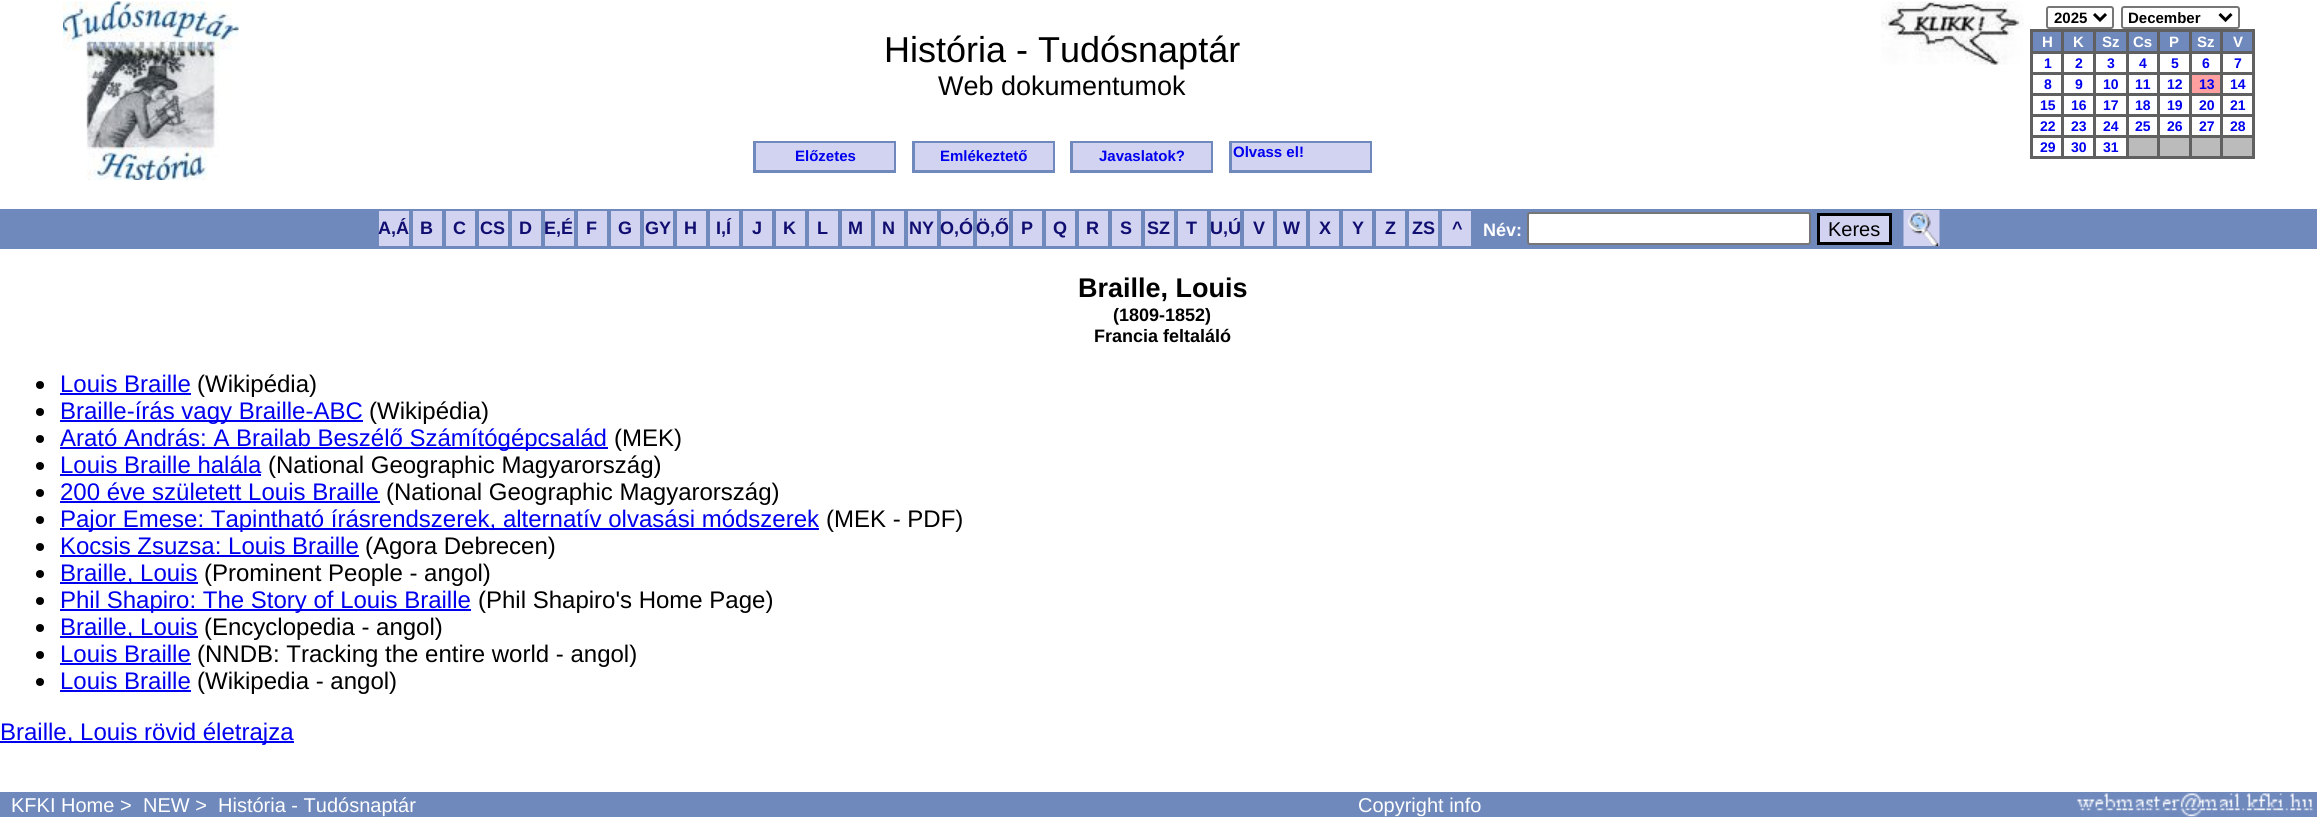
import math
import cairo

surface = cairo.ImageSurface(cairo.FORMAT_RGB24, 2317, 817)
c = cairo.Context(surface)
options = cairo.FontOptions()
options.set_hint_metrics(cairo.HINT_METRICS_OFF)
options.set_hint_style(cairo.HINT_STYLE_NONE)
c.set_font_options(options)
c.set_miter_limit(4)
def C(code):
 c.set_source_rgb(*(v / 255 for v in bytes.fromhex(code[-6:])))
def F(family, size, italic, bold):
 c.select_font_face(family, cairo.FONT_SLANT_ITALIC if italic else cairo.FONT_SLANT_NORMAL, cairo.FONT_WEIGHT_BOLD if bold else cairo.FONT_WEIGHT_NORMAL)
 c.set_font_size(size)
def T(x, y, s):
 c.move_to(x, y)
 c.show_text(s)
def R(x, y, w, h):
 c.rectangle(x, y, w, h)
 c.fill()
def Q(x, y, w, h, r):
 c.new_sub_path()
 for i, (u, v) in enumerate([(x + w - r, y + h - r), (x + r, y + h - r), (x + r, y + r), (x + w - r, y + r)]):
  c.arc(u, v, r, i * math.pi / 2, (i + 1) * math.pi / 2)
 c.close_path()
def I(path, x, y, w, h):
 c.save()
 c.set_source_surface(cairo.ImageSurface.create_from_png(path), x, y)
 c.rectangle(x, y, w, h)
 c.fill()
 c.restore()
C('ffffff')
c.paint()
I('1.png',63,1,176,179)
F('Liberation Sans',36,0,0)
C('000000')
T(884,62,'História - Tudósnaptár')
F('Liberation Sans',27,0,0)
T(938,95,'Web dokumentumok')
I('2.png',1881,1,143,64)
Q(2047,7,66,21,2)
C('767676')
c.stroke()
c.new_path()
c.move_to(2094,14)
c.line_to(2100,20)
c.line_to(2106,14)
C('000000')
c.set_line_width(3)
c.stroke()
F('Liberation Sans',15,0,1)
T(2054,23,'2025')
Q(2122,7,117,21,2)
C('767676')
c.set_line_width(2)
c.stroke()
c.new_path()
c.move_to(2219.5,14)
c.line_to(2225.5,20)
c.line_to(2231.5,14)
C('000000')
c.set_line_width(3)
c.stroke()
c.save()
c.rectangle(2129,8,85,19)
c.clip()
T(2128,23,'December')
c.restore()
C('606060')
R(2030,29,225,130)
C('6f89bd')
R(2033,32,28,19)
C('ffffff')
T(2042,47,'H')
C('6f89bd')
R(2064,32,29,19)
C('ffffff')
T(2073,47,'K')
C('6f89bd')
R(2096,32,30,19)
C('ffffff')
T(2102,47,'Sz')
C('6f89bd')
R(2129,32,28,19)
C('ffffff')
T(2133,47,'Cs')
C('6f89bd')
R(2160,32,29,19)
C('ffffff')
T(2169,47,'P')
C('6f89bd')
R(2192,32,28,19)
C('ffffff')
T(2197,47,'Sz')
C('6f89bd')
R(2223,32,29,19)
C('ffffff')
T(2233,47,'V')
R(2033,54,28,18)
F('Liberation Sans',14,0,1)
C('0000ee')
T(2044,68,'1')
C('ffffff')
R(2064,54,29,18)
C('0000ee')
T(2075,68,'2')
C('ffffff')
R(2096,54,30,18)
C('0000ee')
T(2107,68,'3')
C('ffffff')
R(2129,54,28,18)
C('0000ee')
T(2139,68,'4')
C('ffffff')
R(2160,54,29,18)
C('0000ee')
T(2171,68,'5')
C('ffffff')
R(2192,54,28,18)
C('0000ee')
T(2202,68,'6')
C('ffffff')
R(2223,54,29,18)
C('0000ee')
T(2234,68,'7')
C('ffffff')
R(2033,75,28,18)
C('0000ee')
T(2044,89,'8')
C('ffffff')
R(2064,75,29,18)
C('0000ee')
T(2075,89,'9')
C('ffffff')
R(2096,75,30,18)
C('0000ee')
T(2103,89,'10')
C('ffffff')
R(2129,75,28,18)
C('0000ee')
T(2135,89,'11')
C('ffffff')
R(2160,75,29,18)
C('0000ee')
T(2167,89,'12')
C('ffa0a0')
R(2192,75,28,18)
C('0000ee')
T(2199,89,'13')
C('ffffff')
R(2223,75,29,18)
C('0000ee')
T(2230,89,'14')
C('ffffff')
R(2033,96,28,18)
C('0000ee')
T(2040,110,'15')
C('ffffff')
R(2064,96,29,18)
C('0000ee')
T(2071,110,'16')
C('ffffff')
R(2096,96,30,18)
C('0000ee')
T(2103,110,'17')
C('ffffff')
R(2129,96,28,18)
C('0000ee')
T(2135,110,'18')
C('ffffff')
R(2160,96,29,18)
C('0000ee')
T(2167,110,'19')
C('ffffff')
R(2192,96,28,18)
C('0000ee')
T(2199,110,'20')
C('ffffff')
R(2223,96,29,18)
C('0000ee')
T(2230,110,'21')
C('ffffff')
R(2033,117,28,18)
C('0000ee')
T(2040,131,'22')
C('ffffff')
R(2064,117,29,18)
C('0000ee')
T(2071,131,'23')
C('ffffff')
R(2096,117,30,18)
C('0000ee')
T(2103,131,'24')
C('ffffff')
R(2129,117,28,18)
C('0000ee')
T(2135,131,'25')
C('ffffff')
R(2160,117,29,18)
C('0000ee')
T(2167,131,'26')
C('ffffff')
R(2192,117,28,18)
C('0000ee')
T(2199,131,'27')
C('ffffff')
R(2223,117,29,18)
C('0000ee')
T(2230,131,'28')
C('ffffff')
R(2033,138,28,18)
C('0000ee')
T(2040,152,'29')
C('ffffff')
R(2064,138,29,18)
C('0000ee')
T(2071,152,'30')
C('ffffff')
R(2096,138,30,18)
C('0000ee')
T(2103,152,'31')
C('bbbbbb')
R(2129,138,28,18)
R(2160,138,29,18)
R(2192,138,28,18)
R(2223,138,29,18)
C('d2d2f1')
R(756,143,138,27)
C('6f89bd')
R(753,141,143,2)
R(894,141,2,32)
R(753,170,143,3)
R(753,141,3,32)
F('Liberation Sans',15,0,1)
C('0000ee')
T(795,161,'Előzetes')
C('d2d2f1')
R(915,143,138,27)
C('6f89bd')
R(912,141,143,2)
R(1053,141,2,32)
R(912,170,143,3)
R(912,141,3,32)
C('0000ee')
T(940,161,'Emlékeztető')
C('d2d2f1')
R(1073,143,138,27)
C('6f89bd')
R(1070,141,142,2)
R(1211,141,2,32)
R(1070,170,142,3)
R(1070,141,3,32)
C('0000ee')
T(1099,161,'Javaslatok?')
C('d2d2f1')
R(1232,143,138,27)
C('6f89bd')
R(1229,141,142,2)
R(1370,141,2,32)
R(1229,170,142,3)
R(1229,141,3,32)
C('0000ee')
T(1233,157,'Olvass el!')
C('6f89bd')
R(0,209,2317,40)
C('d2d2f1')
R(379,211,30,35)
F('Liberation Sans',18,0,1)
C('100e71')
T(378,234,'A,Á')
C('d2d2f1')
R(413,211,29,35)
C('100e71')
T(420,234,'B')
C('d2d2f1')
R(446,211,29,35)
C('100e71')
T(453,234,'C')
C('d2d2f1')
R(479,211,29,35)
C('100e71')
T(480,234,'CS')
C('d2d2f1')
R(512,211,29,35)
C('100e71')
T(519,234,'D')
C('d2d2f1')
R(545,211,29,35)
C('100e71')
T(544,234,'E,É')
C('d2d2f1')
R(578,211,29,35)
C('100e71')
T(586,234,'F')
C('d2d2f1')
R(611,211,29,35)
C('100e71')
T(618,234,'G')
C('d2d2f1')
R(644,211,29,35)
C('100e71')
T(645,234,'GY')
C('d2d2f1')
R(677,211,29,35)
C('100e71')
T(684,234,'H')
C('d2d2f1')
R(710,211,29,35)
C('100e71')
T(716,234,'I,Í')
C('d2d2f1')
R(743,211,29,35)
C('100e71')
T(752,234,'J')
C('d2d2f1')
R(776,211,29,35)
C('100e71')
T(783,234,'K')
C('d2d2f1')
R(809,211,29,35)
C('100e71')
T(817,234,'L')
C('d2d2f1')
R(842,211,29,35)
C('100e71')
T(848,234,'M')
C('d2d2f1')
R(875,211,29,35)
C('100e71')
T(882,234,'N')
C('d2d2f1')
R(908,211,29,35)
C('100e71')
T(909,234,'NY')
C('d2d2f1')
R(941,211,32,35)
C('100e71')
T(940,234,'O,Ó')
C('d2d2f1')
R(977,211,32,35)
C('100e71')
T(976,234,'Ö,Ő')
C('d2d2f1')
R(1013,211,29,35)
C('100e71')
T(1021,234,'P')
C('d2d2f1')
R(1046,211,29,35)
C('100e71')
T(1053,234,'Q')
C('d2d2f1')
R(1079,211,29,35)
C('100e71')
T(1086,234,'R')
C('d2d2f1')
R(1112,211,29,35)
C('100e71')
T(1120,234,'S')
C('d2d2f1')
R(1145,211,29,35)
C('100e71')
T(1147,234,'SZ')
C('d2d2f1')
R(1178,211,29,35)
C('100e71')
T(1186,234,'T')
C('d2d2f1')
R(1211,211,29,35)
C('100e71')
T(1210,234,'U,Ú')
C('d2d2f1')
R(1244,211,29,35)
C('100e71')
T(1253,234,'V')
C('d2d2f1')
R(1277,211,29,35)
C('100e71')
T(1283,234,'W')
C('d2d2f1')
R(1310,211,29,35)
C('100e71')
T(1319,234,'X')
C('d2d2f1')
R(1343,211,29,35)
C('100e71')
T(1352,234,'Y')
C('d2d2f1')
R(1376,211,29,35)
C('100e71')
T(1385,234,'Z')
C('d2d2f1')
R(1409,211,29,35)
C('100e71')
T(1412,234,'ZS')
C('d2d2f1')
R(1442,211,29,35)
C('100e71')
T(1452,234,'^')
C('ffffff')
T(1483,236,'Név:')
Q(1528,213,282,31,2)
c.fill_preserve()
C('767676')
c.set_line_width(2)
c.stroke()
C('d2d2f1')
c.rectangle(1818.5,214.5,72,29)
c.fill_preserve()
C('000000')
c.set_line_width(3)
c.stroke()
F('Liberation Sans',20,0,0)
T(1828,236,'Keres')
I('3.png',1903,210,37,36)
F('Liberation Sans',27,0,1)
T(1078,297,'Braille, Louis')
F('Liberation Sans',18,0,1)
T(1113,321,'(1809-1852)')
T(1094,342,'Francia feltaláló')
c.new_path()
c.arc(40,385,4,0,2 * math.pi)
c.fill()
F('Liberation Sans',24,0,0)
C('0000ee')
T(60,392,'Louis Braille')
R(60,393,131,2)
C('000000')
T(197,392,'(Wikipédia)')
c.new_path()
c.arc(40,412,4,0,2 * math.pi)
c.fill()
C('0000ee')
R(60,420,303,2)
T(60,419,'Braille-írás vagy Braille-ABC')
C('000000')
T(369,419,'(Wikipédia)')
c.new_path()
c.arc(40,439,4,0,2 * math.pi)
c.fill()
C('0000ee')
R(60,447,548,2)
T(60,446,'Arató András: A Brailab Beszélő Számítógépcsalád')
C('000000')
T(614,446,'(MEK)')
c.new_path()
c.arc(40,466,4,0,2 * math.pi)
c.fill()
C('0000ee')
T(60,473,'Louis Braille halála')
R(60,474,201,2)
C('000000')
T(268,473,'(National Geographic Magyarország)')
c.new_path()
c.arc(40,493,4,0,2 * math.pi)
c.fill()
C('0000ee')
T(60,500,'200 éve született Louis Braille')
R(60,501,320,2)
C('000000')
T(386,500,'(National Geographic Magyarország)')
c.new_path()
c.arc(40,520,4,0,2 * math.pi)
c.fill()
C('0000ee')
R(60,528,759,2)
T(60,527,'Pajor Emese: Tapintható írásrendszerek, alternatív olvasási módszerek')
C('000000')
T(826,527,'(MEK - PDF)')
c.new_path()
c.arc(40,547,4,0,2 * math.pi)
c.fill()
C('0000ee')
T(60,554,'Kocsis Zsuzsa: Louis Braille')
R(60,555,299,2)
C('000000')
T(365,554,'(Agora Debrecen)')
c.new_path()
c.arc(40,574,4,0,2 * math.pi)
c.fill()
C('0000ee')
R(60,582,138,2)
T(60,581,'Braille, Louis')
C('000000')
T(204,581,'(Prominent People - angol)')
c.new_path()
c.arc(40,601,4,0,2 * math.pi)
c.fill()
C('0000ee')
R(60,609,411,2)
T(60,608,'Phil Shapiro: The Story of Louis Braille')
C('000000')
T(478,608,'(Phil Shapiro\'s Home Page)')
c.new_path()
c.arc(40,628,4,0,2 * math.pi)
c.fill()
C('0000ee')
R(60,636,138,2)
T(60,635,'Braille, Louis')
C('000000')
T(204,635,'(Encyclopedia - angol)')
c.new_path()
c.arc(40,655,4,0,2 * math.pi)
c.fill()
C('0000ee')
T(60,662,'Louis Braille')
R(60,663,131,2)
C('000000')
T(197,662,'(NNDB: Tracking the entire world - angol)')
c.new_path()
c.arc(40,682,4,0,2 * math.pi)
c.fill()
C('0000ee')
T(60,689,'Louis Braille')
R(60,690,131,2)
C('000000')
T(197,689,'(Wikipedia - angol)')
C('0000ee')
R(0,741,294,2)
T(0,740,'Braille, Louis rövid életrajza')
C('6f89bd')
R(0,792,2317,25)
F('Liberation Sans',20,0,0)
C('ffffff')
T(11,812,'KFKI Home >')
T(143,812,'NEW >')
T(218,812,'História - Tudósnaptár')
T(1358,812,'Copyright info')
I('4.png',2077,793,237,24)
surface.write_to_png('o.png')
